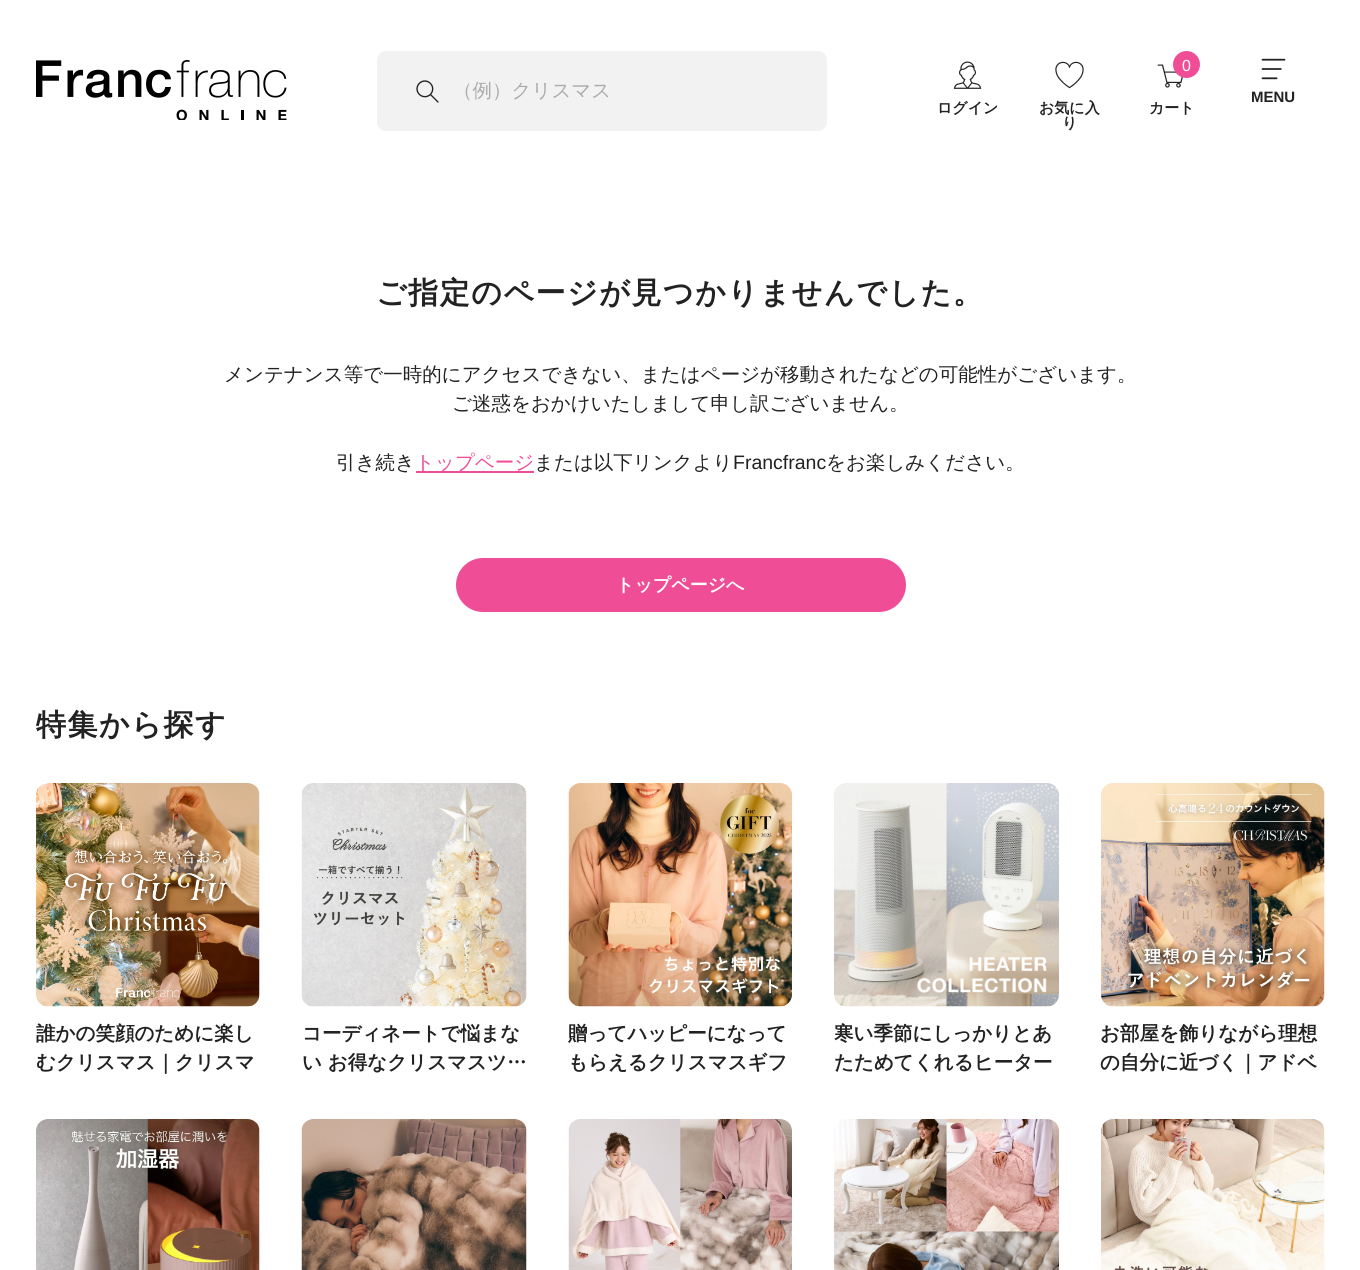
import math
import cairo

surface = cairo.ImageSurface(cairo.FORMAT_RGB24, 1360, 1270)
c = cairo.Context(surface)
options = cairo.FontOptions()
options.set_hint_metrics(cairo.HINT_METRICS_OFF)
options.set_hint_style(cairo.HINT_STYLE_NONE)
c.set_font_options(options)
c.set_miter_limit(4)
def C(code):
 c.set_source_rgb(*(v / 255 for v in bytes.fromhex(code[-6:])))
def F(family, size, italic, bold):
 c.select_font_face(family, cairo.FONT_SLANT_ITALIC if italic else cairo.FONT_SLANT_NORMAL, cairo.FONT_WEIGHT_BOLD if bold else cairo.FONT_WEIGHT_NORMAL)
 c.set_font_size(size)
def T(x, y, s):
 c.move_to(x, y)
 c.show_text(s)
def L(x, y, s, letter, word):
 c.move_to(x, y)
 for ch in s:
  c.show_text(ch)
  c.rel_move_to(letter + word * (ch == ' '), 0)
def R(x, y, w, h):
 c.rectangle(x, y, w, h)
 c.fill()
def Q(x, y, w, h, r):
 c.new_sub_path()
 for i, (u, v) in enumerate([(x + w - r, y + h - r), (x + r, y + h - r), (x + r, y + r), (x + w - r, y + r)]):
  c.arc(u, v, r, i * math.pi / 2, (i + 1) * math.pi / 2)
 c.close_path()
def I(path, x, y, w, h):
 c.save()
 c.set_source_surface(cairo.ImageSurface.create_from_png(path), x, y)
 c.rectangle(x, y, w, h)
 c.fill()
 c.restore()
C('ffffff')
c.paint()
I('1.png',36,60,251,60)
C('f3f2f3')
Q(378,52,448,78,8)
c.fill_preserve()
c.stroke()
I('2.png',416,80,23,23)
F('WenQuanYi Zen Hei Medium',19.5,0,0)
C('ababab')
T(453,97,'（例）クリスマス')
I('3.png',1157,64,26,24)
C('ef4e96')
c.arc(1186.5,64.5,13.5,0,2 * math.pi)
c.fill()
F('Liberation Sans',16,0,0)
C('ffffff')
T(1182,71,'0')
F('WenQuanYi Zen Hei',15,0,1)
C('222222')
T(1149,113,'カート')
I('4.png',1261,58,25,22)
F('Liberation Sans',15,0,1)
T(1251,102,'MENU')
I('5.png',953,61,29,28)
F('WenQuanYi Zen Hei',15,0,1)
T(937,113,'ログイン')
I('6.png',1055,61,29,28)
T(1039,113,'お気に入')
T(1062,128,'り')
F('WenQuanYi Zen Hei',30,0,1)
L(376,303,'ご指定のページが見つかりませんでした。',1.5,0)
F('WenQuanYi Zen Hei Medium',19.5,0,0)
T(224,381,'メンテナンス等で一時的にアクセスできない、またはページが移動されたなどの可能性がございます。')
T(452,410,'ご迷惑をおかけいたしまして申し訳ございません。')
T(336,469,'引き続き')
C('ef4e96')
R(416,471,118,2)
T(415,469,'トップページ')
C('222222')
T(534,469,'または以下リンクより')
F('Liberation Sans',19.5,0,0)
T(733,469,'Francfranc')
F('WenQuanYi Zen Hei Medium',19.5,0,0)
T(826,469,'をお楽しみください。')
C('ef4e96')
Q(457,559,448,52,26)
c.fill_preserve()
c.stroke()
F('WenQuanYi Zen Hei',18,0,1)
C('ffffff')
T(616,591,'トップページへ')
F('WenQuanYi Zen Hei',30,0,1)
C('222222')
L(36,735,'特集から探す',1.5,0)
I('7.png',36,783,224,224)
F('WenQuanYi Zen Hei',19.5,0,1)
T(36,1040,'誰かの笑顔のために楽し')
T(36,1069,'むクリスマス｜クリスマ')
I('8.png',301,783,226,224)
T(302,1040,'コーディネートで悩まな')
T(302,1069,'い お得なクリスマスツ…')
I('9.png',568,783,224,224)
T(568,1040,'贈ってハッピーになって')
T(568,1069,'もらえるクリスマスギフ')
I('10.png',834,783,225,224)
T(834,1040,'寒い季節にしっかりとあ')
T(834,1069,'たためてくれるヒーター')
I('11.png',1101,783,224,224)
T(1100,1040,'お部屋を飾りながら理想')
T(1100,1069,'の自分に近づく｜アドベ')
I('12.png',36,1119,224,151)
I('13.png',301,1119,226,151)
I('14.png',568,1119,224,151)
I('15.png',834,1119,225,151)
I('16.png',1101,1119,224,151)
surface.write_to_png('o.png')
